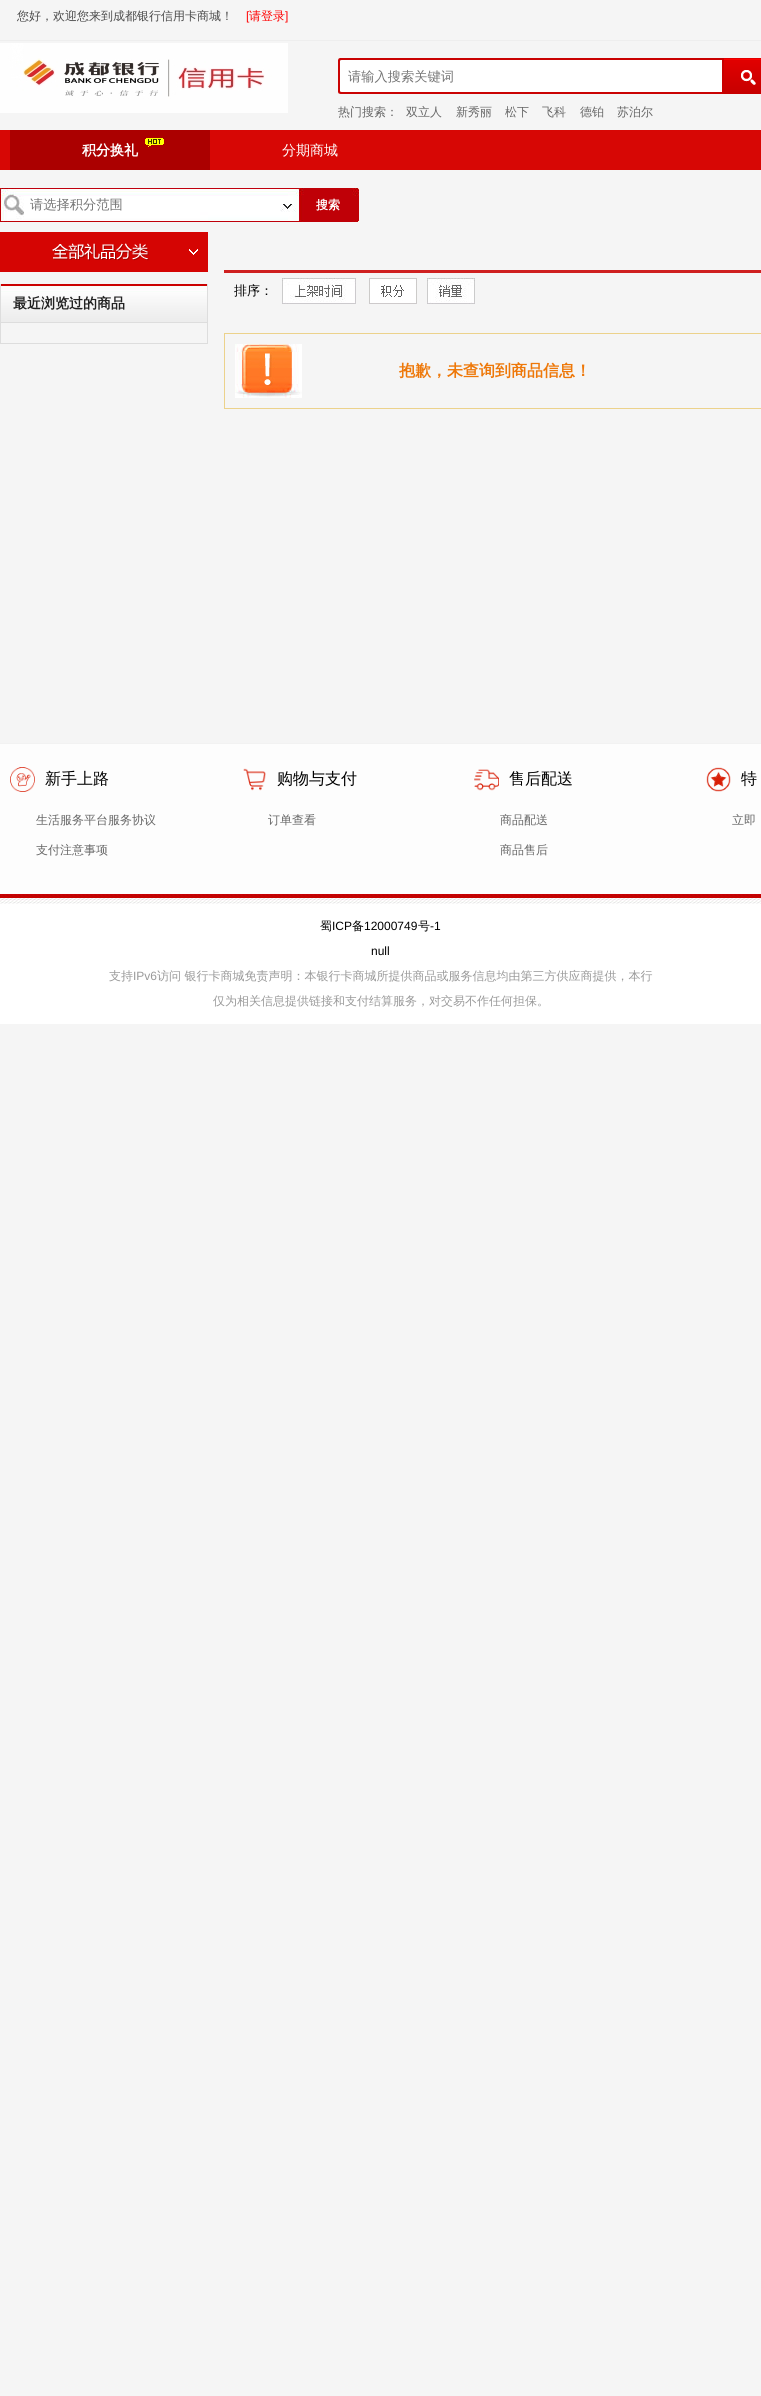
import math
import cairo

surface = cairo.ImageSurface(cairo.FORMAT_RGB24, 761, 2396)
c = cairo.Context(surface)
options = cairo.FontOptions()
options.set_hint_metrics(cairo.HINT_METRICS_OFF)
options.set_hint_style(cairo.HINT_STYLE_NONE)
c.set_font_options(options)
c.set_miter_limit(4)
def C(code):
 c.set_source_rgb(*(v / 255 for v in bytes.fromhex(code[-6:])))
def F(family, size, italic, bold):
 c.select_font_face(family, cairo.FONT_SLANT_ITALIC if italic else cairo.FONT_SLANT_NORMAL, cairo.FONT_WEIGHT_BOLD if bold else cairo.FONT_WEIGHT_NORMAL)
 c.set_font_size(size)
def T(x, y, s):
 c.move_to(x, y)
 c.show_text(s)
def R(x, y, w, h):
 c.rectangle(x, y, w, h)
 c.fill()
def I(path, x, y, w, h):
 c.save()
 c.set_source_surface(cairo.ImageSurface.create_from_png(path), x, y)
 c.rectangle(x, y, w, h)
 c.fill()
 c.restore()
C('f5f5f5')
c.paint()
C('eeeeee')
R(0,40,761,1)
F('WenQuanYi Zen Hei Medium',12,0,0)
C('4b4b4b')
T(17,20,'您好，欢迎您来到成都银行信用卡商城！')
F('Liberation Sans',12,0,0)
C('ff0000')
T(246,20,'[')
F('WenQuanYi Zen Hei Medium',12,0,0)
T(249,20,'请登录')
F('Liberation Sans',12,0,0)
T(285,20,']')
I('1.png',0,43,288,70)
I('2.png',338,58,423,36)
F('WenQuanYi Zen Hei Medium',13.25,0,0)
C('757575')
T(348,81,'请输入搜索关键词')
F('WenQuanYi Zen Hei Medium',12,0,0)
C('666666')
T(338,116,'热门搜索：')
T(406,116,'双立人')
T(456,116,'新秀丽')
T(505,116,'松下')
T(542,116,'飞科')
T(580,116,'德铂')
T(617,116,'苏泊尔')
C('d70705')
R(0,130,761,40)
C('ab0000')
R(10,130,200,40)
F('WenQuanYi Zen Hei',14,0,1)
C('ffffff')
T(82,155,'积分换礼')
I('3.png',145,138,19,9)
F('WenQuanYi Zen Hei Medium',14,0,0)
T(282,155,'分期商城')
I('4.png',0,188,359,34)
F('WenQuanYi Zen Hei Medium',13.25,0,0)
C('757575')
T(30,209,'请选择积分范围')
F('WenQuanYi Zen Hei',12,0,1)
C('ffffff')
T(316,209,'搜索')
I('5.png',0,232,208,40)
C('dddddd')
R(207,284,1,60)
R(0,343,208,1)
R(0,284,1,60)
I('6.png',1,284,206,38)
R(1,322,206,1)
F('WenQuanYi Zen Hei',14,0,1)
C('222222')
T(13,308,'最近浏览过的商品')
C('cf2020')
R(224,270,537,3)
F('WenQuanYi Zen Hei Medium',13,0,0)
C('000000')
T(234,295,'排序：')
I('7.png',282,278,74,26)
I('8.png',369,278,48,26)
I('9.png',427,278,48,26)
c.rectangle(224.5,333.5,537,75)
C('ecd28b')
c.set_line_width(1)
c.stroke()
I('10.png',235,344,67,54)
F('WenQuanYi Zen Hei',16,0,1)
C('ee7809')
T(399,376,'抱歉，未查询到商品信息！')
C('fdfdfd')
R(0,744,761,150)
C('f2f2f2')
R(0,743,761,1)
I('11.png',10,767,25,25)
F('WenQuanYi Zen Hei Medium',16,0,0)
C('000000')
T(45,784,'新手上路')
F('WenQuanYi Zen Hei Medium',12,0,0)
C('666666')
T(36,824,'生活服务平台服务协议')
T(36,854,'支付注意事项')
I('12.png',243,768,23,23)
F('WenQuanYi Zen Hei Medium',16,0,0)
C('000000')
T(277,784,'购物与支付')
F('WenQuanYi Zen Hei Medium',12,0,0)
C('666666')
T(268,824,'订单查看')
I('13.png',474,769,25,22)
F('WenQuanYi Zen Hei Medium',16,0,0)
C('000000')
T(509,784,'售后配送')
F('WenQuanYi Zen Hei Medium',12,0,0)
C('666666')
T(500,824,'商品配送')
T(500,854,'商品售后')
I('14.png',706,767,25,25)
F('WenQuanYi Zen Hei Medium',16,0,0)
C('000000')
T(741,784,'特')
F('WenQuanYi Zen Hei Medium',12,0,0)
C('666666')
T(732,824,'立即')
C('ffffff')
R(0,904,761,120)
I('15.png',0,894,761,10)
C('000000')
T(320,930,'蜀')
F('Liberation Sans',12,0,0)
T(332,930,'ICP')
F('WenQuanYi Zen Hei Medium',12,0,0)
T(352,930,'备')
F('Liberation Sans',12,0,0)
T(364,930,'12000749')
F('WenQuanYi Zen Hei Medium',12,0,0)
T(418,930,'号')
F('Liberation Sans',12,0,0)
T(430,930,'-1')
T(371,955,'null')
F('WenQuanYi Zen Hei Medium',12,0,0)
C('999999')
T(109,980,'支持')
F('Liberation Sans',12,0,0)
T(133,980,'IPv6')
F('WenQuanYi Zen Hei Medium',12,0,0)
T(157,980,'访问 银行卡商城免责声明：本银行卡商城所提供商品或服务信息均由第三方供应商提供，本行')
T(213,1005,'仅为相关信息提供链接和支付结算服务，对交易不作任何担保。')
surface.write_to_png('o.png')
